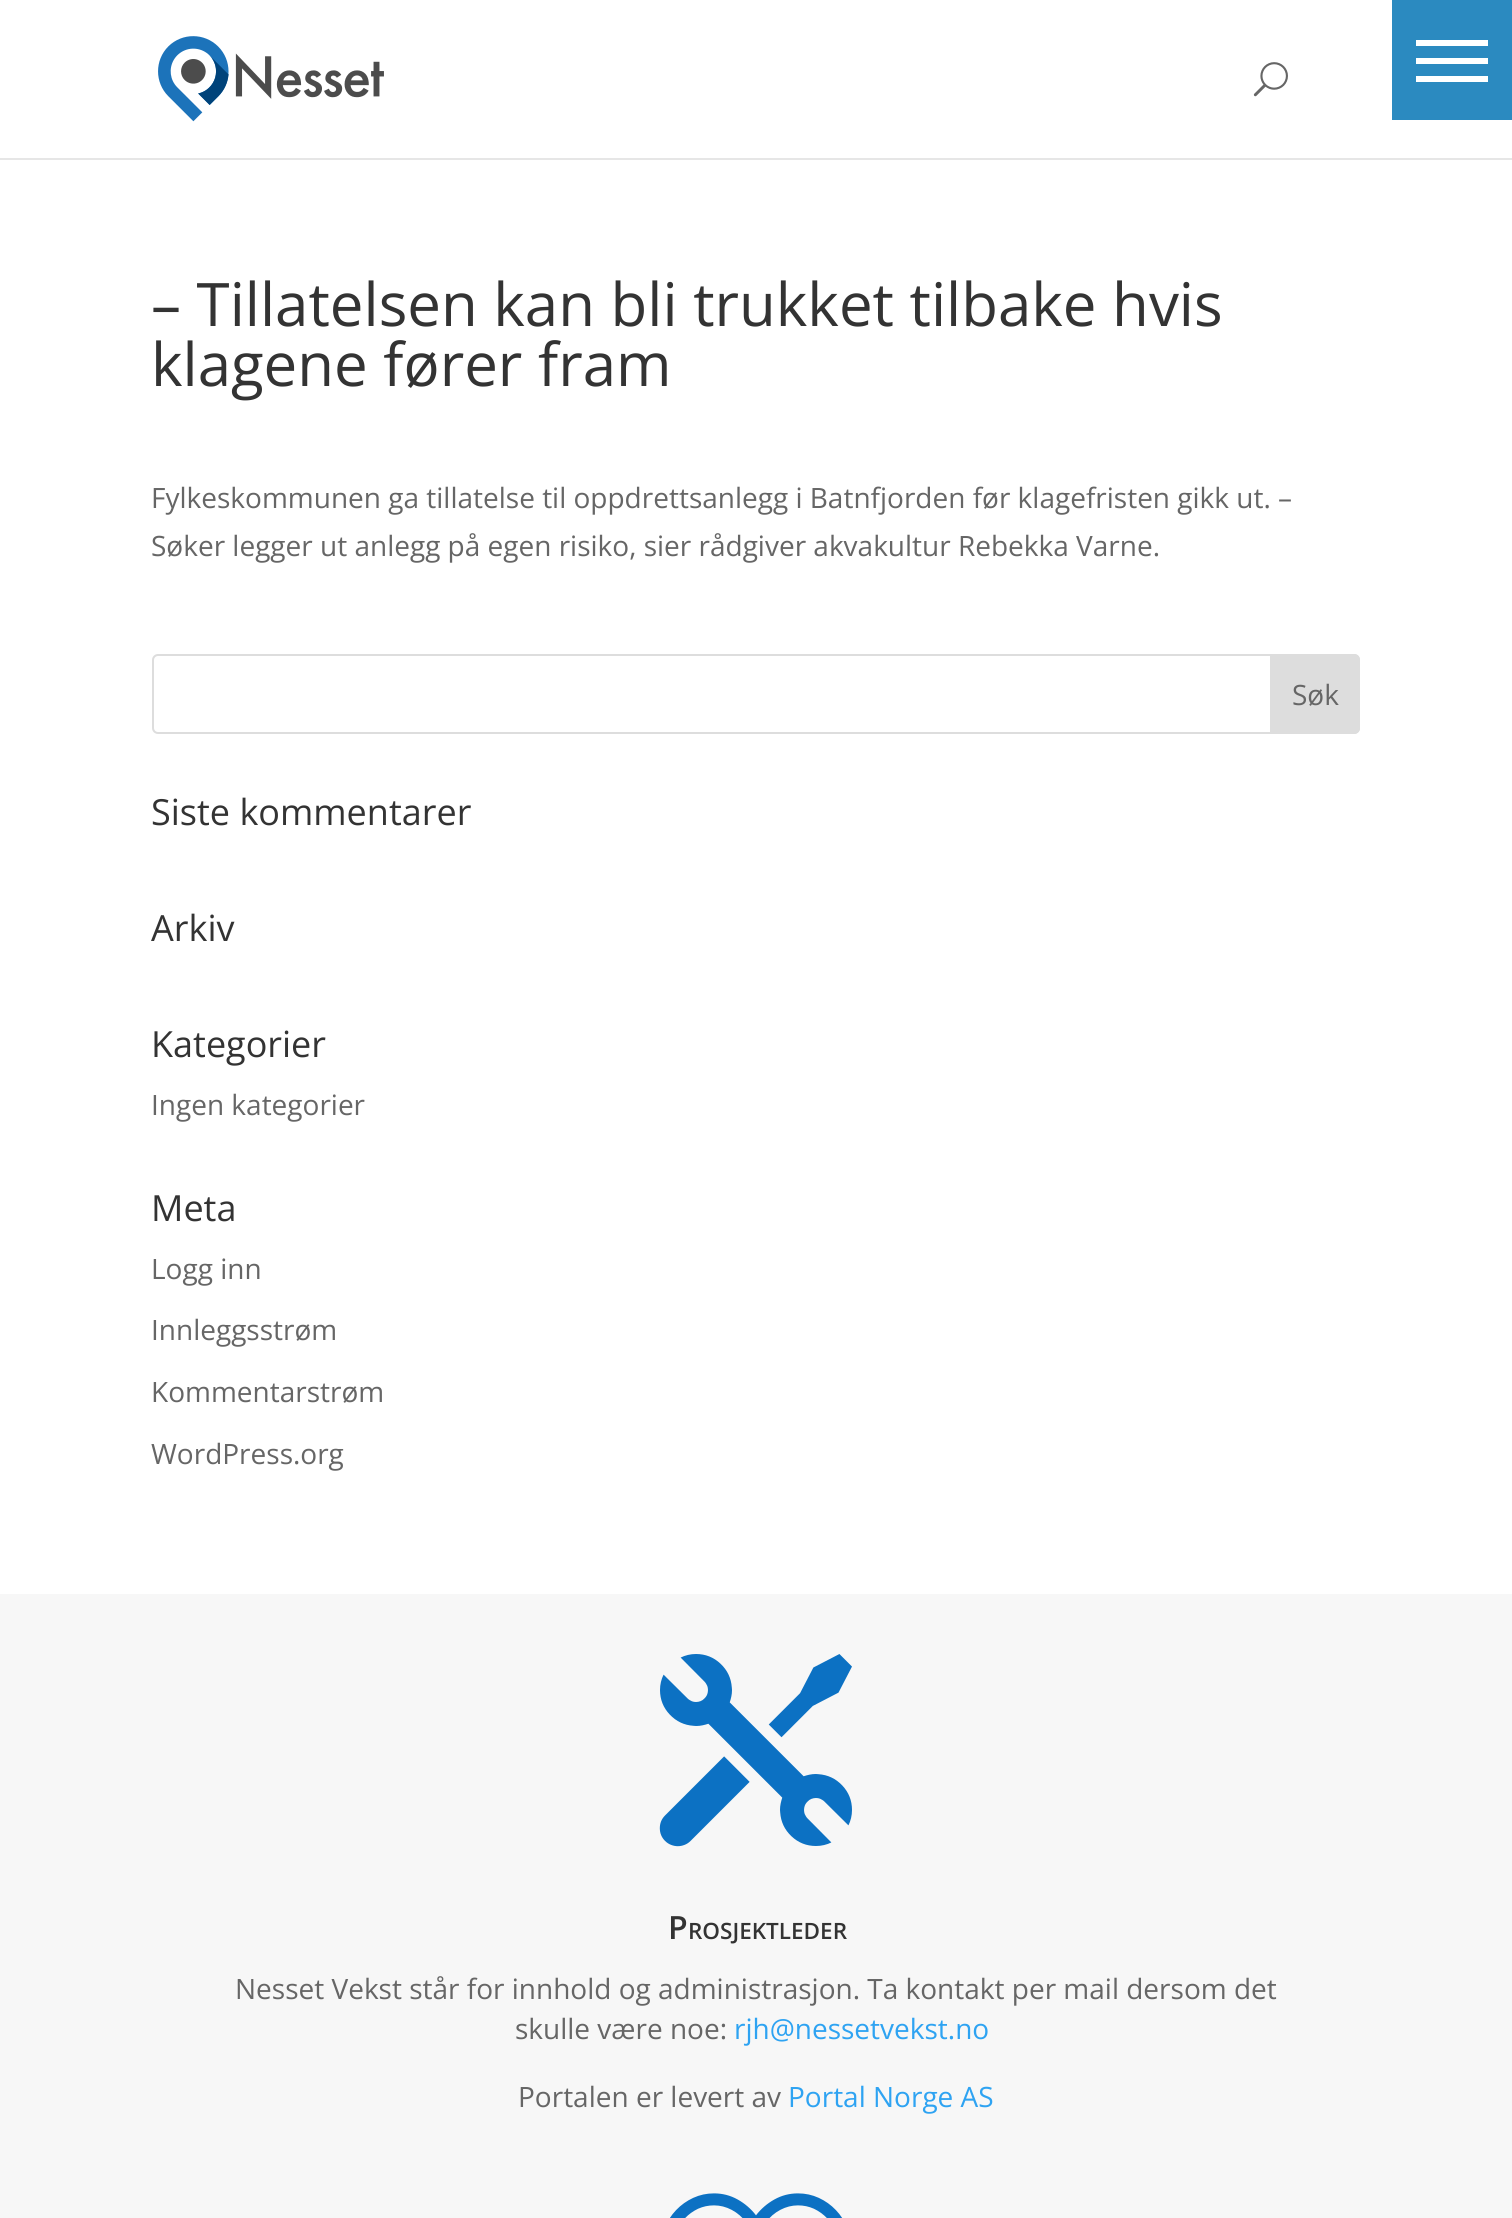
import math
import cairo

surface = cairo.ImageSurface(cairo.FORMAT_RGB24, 1512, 2218)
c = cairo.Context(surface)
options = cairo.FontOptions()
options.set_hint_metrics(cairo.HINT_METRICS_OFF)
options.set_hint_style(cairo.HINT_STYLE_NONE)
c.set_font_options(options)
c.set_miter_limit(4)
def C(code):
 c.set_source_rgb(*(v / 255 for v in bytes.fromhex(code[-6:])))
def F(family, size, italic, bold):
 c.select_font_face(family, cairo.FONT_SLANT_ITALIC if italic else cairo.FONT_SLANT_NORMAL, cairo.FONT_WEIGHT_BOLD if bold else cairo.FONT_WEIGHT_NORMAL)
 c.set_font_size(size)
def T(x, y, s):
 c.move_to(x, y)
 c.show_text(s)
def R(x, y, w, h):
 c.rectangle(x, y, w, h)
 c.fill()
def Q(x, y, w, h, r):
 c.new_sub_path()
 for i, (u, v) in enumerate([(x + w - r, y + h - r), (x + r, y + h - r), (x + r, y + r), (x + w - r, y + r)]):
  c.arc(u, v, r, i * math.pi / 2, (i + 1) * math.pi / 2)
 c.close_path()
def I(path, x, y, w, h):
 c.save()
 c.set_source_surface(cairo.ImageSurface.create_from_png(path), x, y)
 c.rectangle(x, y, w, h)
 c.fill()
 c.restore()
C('ffffff')
c.paint()
C('2b8ac0')
R(1392,0,120,120)
C('ffffff')
R(1416,58,72,6)
R(1416,40,72,6)
R(1416,76,72,6)
C('e6e6e6')
R(0,158,1512,2)
I('1.png',158,36,226,86)
I('2.png',1253,62,35,35)
F('Open Sans',60,0,0)
C('333333')
T(151,326,'– Tillatelsen kan bli trukket tilbake hvis')
T(151,386,'klagene fører fram')
F('Open Sans',28,0,0)
C('666666')
T(151,508,'Fylkeskommunen ga tillatelse til oppdrettsanlegg i Batnfjorden før klagefristen gikk ut. –')
T(151,556,'Søker legger ut anlegg på egen risiko, sier rådgiver akvakultur Rebekka Varne.')
Q(153,655,1206,78,5)
C('dddddd')
c.stroke()
c.new_path()
c.move_to(1271,655)
c.line_to(1354,655)
c.curve_to(1357,655,1359,657,1359,660)
c.line_to(1359,728)
c.curve_to(1359,731,1357,733,1354,733)
c.line_to(1271,733)
c.close_path()
c.fill_preserve()
c.stroke()
C('666666')
T(1292,705,'Søk')
F('Open Sans',36,0,0)
C('333333')
T(151,825,'Siste kommentarer')
T(151,941,'Arkiv')
T(151,1057,'Kategorier')
F('Open Sans',28,0,0)
C('666666')
T(151,1115,'Ingen kategorier')
F('Open Sans',36,0,0)
C('333333')
T(151,1221,'Meta')
F('Open Sans',28,0,0)
C('666666')
T(151,1279,'Logg inn')
T(151,1340,'Innleggsstrøm')
T(151,1402,'Kommentarstrøm')
T(151,1464,'WordPress.org')
C('f7f7f7')
R(0,1594,1512,624)
I('3.png',659,1654,193,193)
F('Open Sans SemiBold',32,0,0)
C('333333')
T(668,1939,'P')
F('Open Sans SemiBold',22.5,0,0)
T(688,1939,'ROSJEKTLEDER')
F('Open Sans',28,0,0)
C('666666')
T(235,1999,'Nesset Vekst står for innhold og administrasjon. Ta kontakt per mail dersom det')
T(515,2039,'skulle være noe:')
C('2ea3f2')
T(734,2039,'rjh@nessetvekst.no')
C('666666')
T(518,2107,'Portalen er levert av')
C('2ea3f2')
T(788,2107,'Portal Norge AS')
I('4.png',670,2193,173,25)
surface.write_to_png('o.png')
